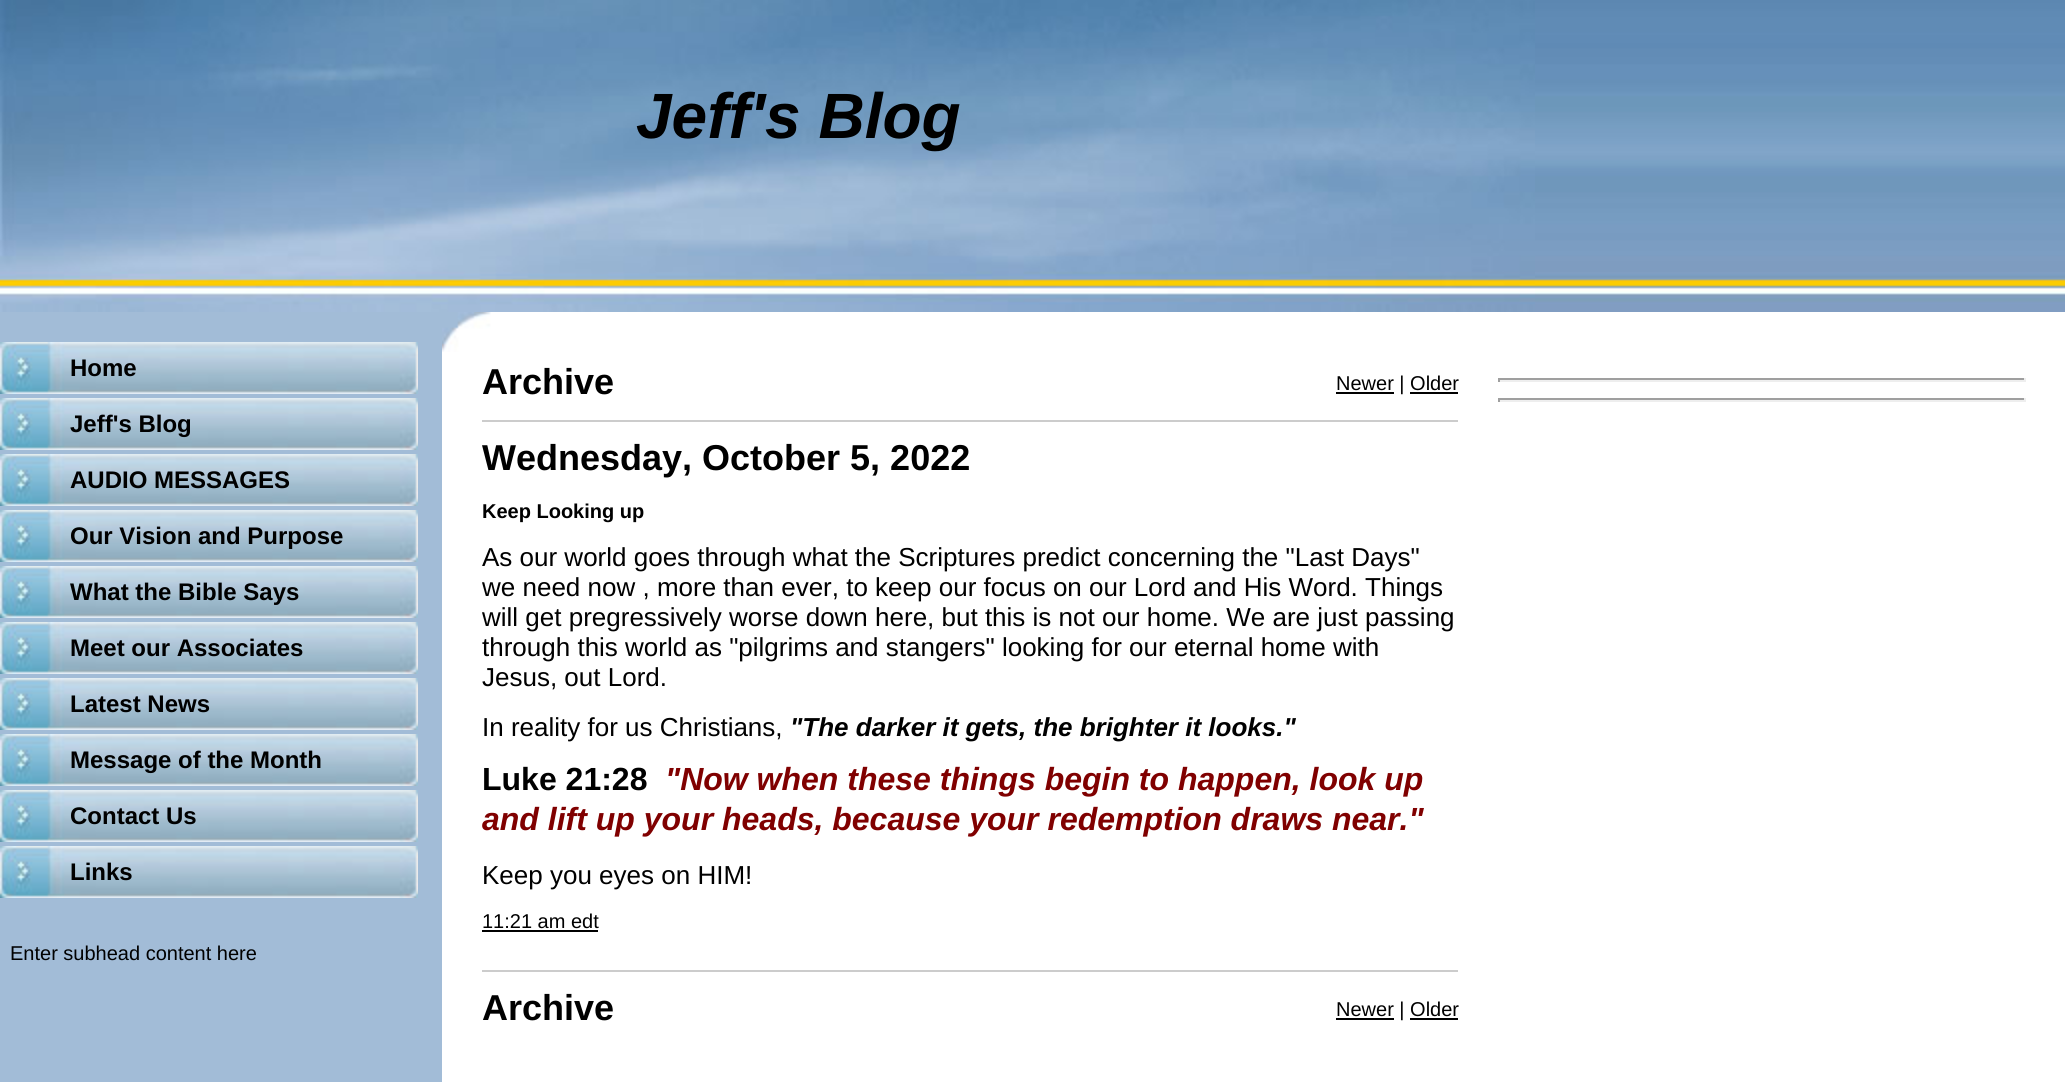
import math
import cairo

surface = cairo.ImageSurface(cairo.FORMAT_RGB24, 2065, 1082)
c = cairo.Context(surface)
options = cairo.FontOptions()
options.set_hint_metrics(cairo.HINT_METRICS_OFF)
options.set_hint_style(cairo.HINT_STYLE_NONE)
c.set_font_options(options)
c.set_miter_limit(4)
def C(code):
 c.set_source_rgb(*(v / 255 for v in bytes.fromhex(code[-6:])))
def F(family, size, italic, bold):
 c.select_font_face(family, cairo.FONT_SLANT_ITALIC if italic else cairo.FONT_SLANT_NORMAL, cairo.FONT_WEIGHT_BOLD if bold else cairo.FONT_WEIGHT_NORMAL)
 c.set_font_size(size)
def T(x, y, s):
 c.move_to(x, y)
 c.show_text(s)
def R(x, y, w, h):
 c.rectangle(x, y, w, h)
 c.fill()
def I(path, x, y, w, h):
 c.save()
 c.set_source_surface(cairo.ImageSurface.create_from_png(path), x, y)
 c.rectangle(x, y, w, h)
 c.fill()
 c.restore()
C('ffffff')
c.paint()
I('1.png',1535,0,530,312)
I('2.png',0,0,1535,312)
F('Liberation Sans',64,1,1)
C('000000')
T(636,138,'Jeff\'s Blog')
C('a2bcd7')
R(0,312,442,770)
I('3.png',0,342,418,52)
F('Liberation Sans',24,0,1)
C('000000')
T(70,376,'Home')
I('3.png',0,398,418,52)
T(70,432,'Jeff\'s Blog')
I('3.png',0,454,418,52)
T(70,488,'AUDIO MESSAGES')
I('3.png',0,510,418,52)
T(70,544,'Our Vision and Purpose')
I('3.png',0,566,418,52)
T(70,600,'What the Bible Says')
I('3.png',0,622,418,52)
T(70,656,'Meet our Associates')
I('3.png',0,678,418,52)
T(70,712,'Latest News')
I('3.png',0,734,418,52)
T(70,768,'Message of the Month')
I('3.png',0,790,418,52)
T(70,824,'Contact Us')
I('3.png',0,846,418,52)
T(70,880,'Links')
F('Liberation Sans',20,0,0)
T(10,960,'Enter subhead content here')
I('4.png',442,312,49,40)
F('Liberation Sans',36,0,1)
T(482,394,'Archive')
R(1336,392,58,2)
F('Liberation Sans',20,0,0)
T(1336,390,'Newer | Older')
R(1410,392,48,2)
C('cccccc')
R(482,420,976,2)
F('Liberation Sans',36,0,1)
C('000000')
T(482,470,'Wednesday, October 5, 2022')
F('Liberation Sans',20,0,1)
T(482,518,'Keep Looking up')
F('Liberation Sans',26,0,0)
T(482,566,'As our world goes through what the Scriptures predict concerning the "Last Days"')
T(482,596,'we need now , more than ever, to keep our focus on our Lord and His Word. Things')
T(482,626,'will get pregressively worse down here, but this is not our home. We are just passing')
T(482,656,'through this world as "pilgrims and stangers" looking for our eternal home with')
T(482,686,'Jesus, out Lord.')
T(482,736,'In reality for us Christians,')
F('Liberation Sans',26,1,1)
T(790,736,'"The darker it gets, the brighter it looks."')
F('Liberation Sans',32,0,1)
T(482,790,'Luke 21:28')
F('Liberation Sans',32,1,1)
C('800000')
T(665,790,'"Now when these things begin to happen, look up')
T(482,830,'and lift up your heads, because your redemption draws near."')
F('Liberation Sans',26,0,0)
C('000000')
T(482,884,'Keep you eyes on HIM!')
F('Liberation Sans',20,0,0)
T(482,928,'11:21 am edt')
R(482,930,116,2)
C('cccccc')
R(482,970,976,2)
F('Liberation Sans',36,0,1)
C('000000')
T(482,1020,'Archive')
R(1336,1018,58,2)
F('Liberation Sans',20,0,0)
T(1336,1016,'Newer | Older')
R(1410,1018,48,2)
C('9f9f9f')
R(1498,378,528,2)
C('eeeeee')
R(2024,378,2,4)
R(1498,380,528,2)
C('9f9f9f')
R(1498,378,2,4)
R(1498,398,528,2)
C('eeeeee')
R(2024,398,2,4)
R(1498,400,528,2)
C('9f9f9f')
R(1498,398,2,4)
surface.write_to_png('o.png')
